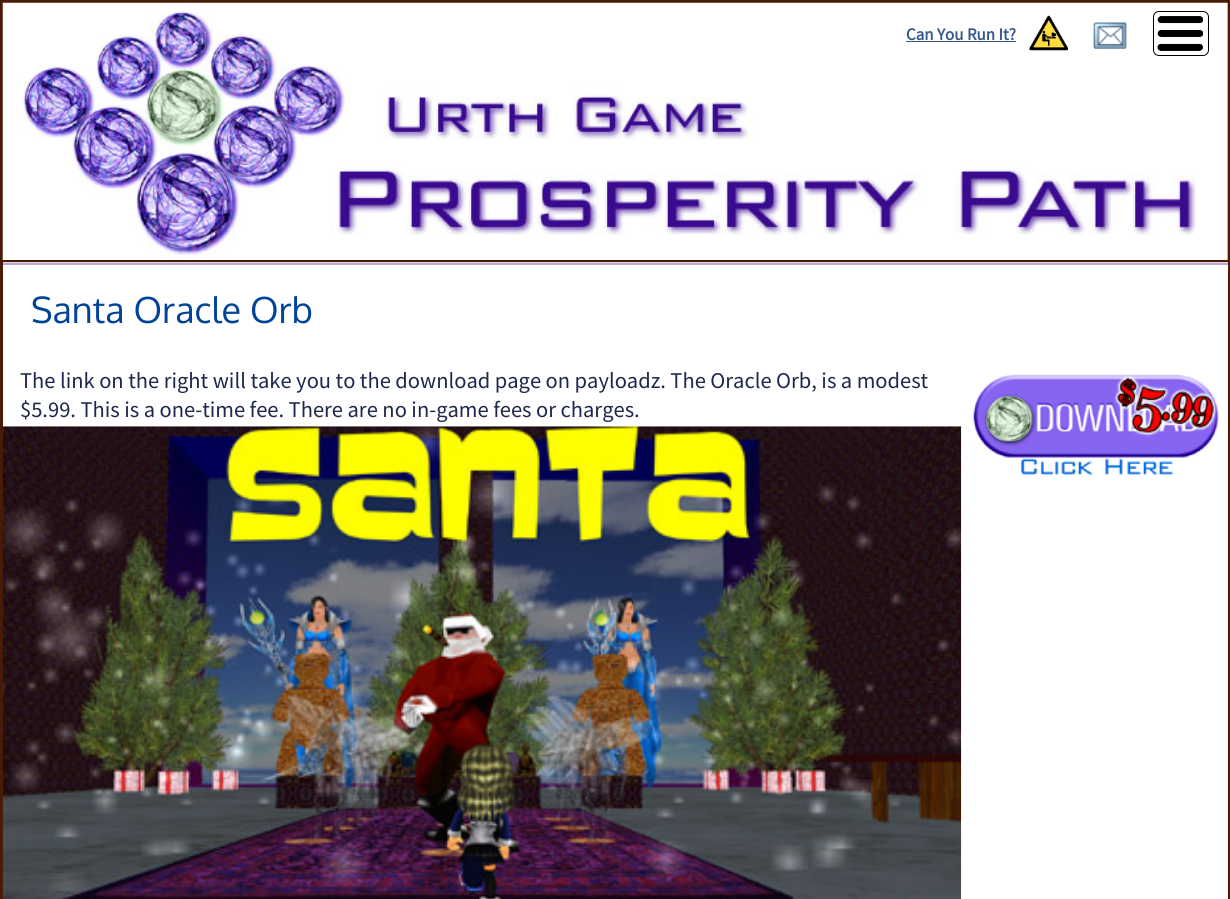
import math
import cairo

surface = cairo.ImageSurface(cairo.FORMAT_RGB24, 1230, 899)
c = cairo.Context(surface)
options = cairo.FontOptions()
options.set_hint_metrics(cairo.HINT_METRICS_OFF)
options.set_hint_style(cairo.HINT_STYLE_NONE)
c.set_font_options(options)
c.set_miter_limit(4)
def C(code):
 c.set_source_rgb(*(v / 255 for v in bytes.fromhex(code[-6:])))
def F(family, size, italic, bold):
 c.select_font_face(family, cairo.FONT_SLANT_ITALIC if italic else cairo.FONT_SLANT_NORMAL, cairo.FONT_WEIGHT_BOLD if bold else cairo.FONT_WEIGHT_NORMAL)
 c.set_font_size(size)
def T(x, y, s):
 c.move_to(x, y)
 c.show_text(s)
def R(x, y, w, h):
 c.rectangle(x, y, w, h)
 c.fill()
def Q(x, y, w, h, r):
 c.new_sub_path()
 for i, (u, v) in enumerate([(x + w - r, y + h - r), (x + r, y + h - r), (x + r, y + r), (x + w - r, y + r)]):
  c.arc(u, v, r, i * math.pi / 2, (i + 1) * math.pi / 2)
 c.close_path()
def I(path, x, y, w, h):
 c.save()
 c.set_source_surface(cairo.ImageSurface.create_from_png(path), x, y)
 c.rectangle(x, y, w, h)
 c.fill()
 c.restore()
C('ffffff')
c.paint()
c.rectangle(1.5,1.5,1227,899)
C('4a1b04')
c.set_line_width(3)
c.stroke()
C('af9b8e')
R(1227,3,1,257)
I('1.png',2,2,1226,258)
F('Source Sans Pro',17,0,1)
C('34568b')
T(906,40,'Can You Run It?')
R(906,41,110,1)
I('2.png',1028,15,41,36)
I('3.png',1093,22,34,27)
I('4.png',1157,16,46,35)
Q(1153.5,11.5,55,44,5.5)
C('000000')
c.set_line_width(1)
c.stroke()
C('dfd6e9')
R(3,262,1225,1)
C('4a1b04')
R(3,260,1225,2)
C('bda6d4')
R(3,263,1225,2)
C('ffffff')
R(1227,265,1,634)
F('Oxygen',36,0,0)
C('004499')
T(31,323,'Santa Oracle Orb')
F('Source Sans Pro',22.5,0,0)
C('1e284d')
T(20,388,'The link on the right will take you to the download page on payloadz. The Oracle Orb, is a modest')
T(20,417,'$5.99. This is a one-time fee. There are no in-game fees or charges.')
I('5.png',972,374,247,102)
I('6.png',2,426,960,473)
surface.write_to_png('o.png')
